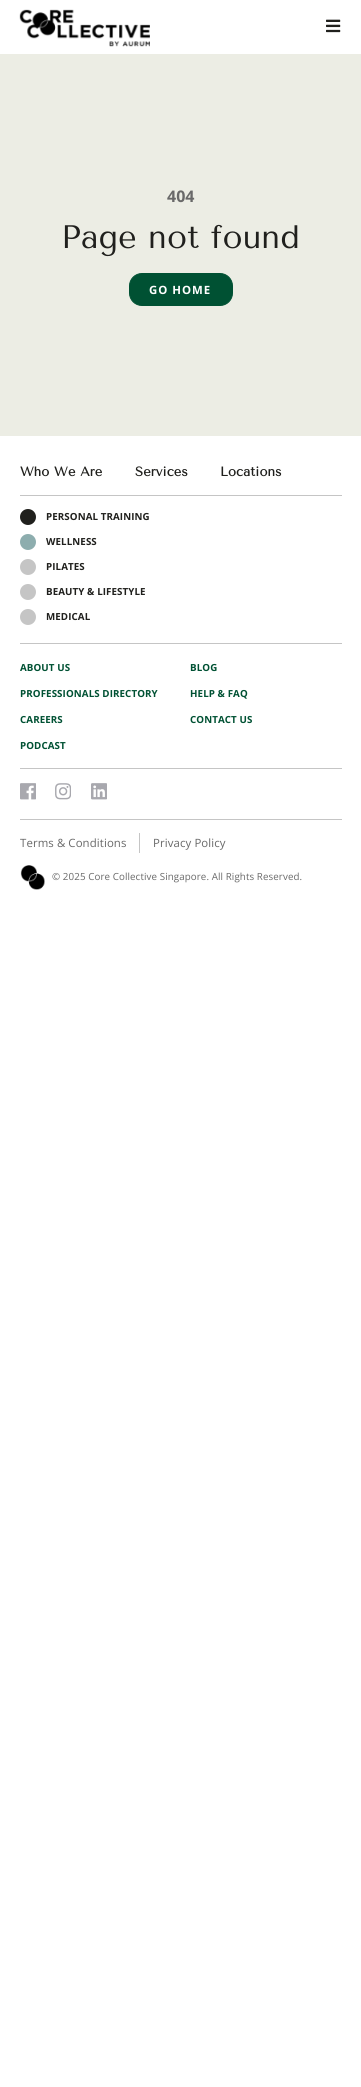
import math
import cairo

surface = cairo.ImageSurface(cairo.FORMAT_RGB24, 361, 2087)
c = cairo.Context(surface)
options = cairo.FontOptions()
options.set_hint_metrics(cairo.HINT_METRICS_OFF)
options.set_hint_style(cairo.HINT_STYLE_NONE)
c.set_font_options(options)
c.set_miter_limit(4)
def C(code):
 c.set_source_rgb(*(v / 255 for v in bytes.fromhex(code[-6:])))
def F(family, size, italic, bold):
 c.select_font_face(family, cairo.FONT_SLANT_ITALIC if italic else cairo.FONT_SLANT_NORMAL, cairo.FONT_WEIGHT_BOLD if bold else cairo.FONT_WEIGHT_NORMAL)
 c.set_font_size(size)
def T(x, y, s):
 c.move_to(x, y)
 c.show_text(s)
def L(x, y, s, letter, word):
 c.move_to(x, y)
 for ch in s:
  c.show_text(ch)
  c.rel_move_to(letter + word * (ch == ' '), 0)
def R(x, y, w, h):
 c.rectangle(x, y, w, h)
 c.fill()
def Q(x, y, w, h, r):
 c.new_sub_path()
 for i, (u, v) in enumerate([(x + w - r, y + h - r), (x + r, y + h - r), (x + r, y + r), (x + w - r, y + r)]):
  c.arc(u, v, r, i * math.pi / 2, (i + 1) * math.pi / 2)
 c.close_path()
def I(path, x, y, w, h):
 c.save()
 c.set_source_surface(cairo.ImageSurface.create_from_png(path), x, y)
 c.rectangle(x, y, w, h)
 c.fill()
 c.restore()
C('ffffff')
c.paint()
I('1.png',19,9,131,38)
I('2.png',326,19,15,14)
C('ecede4')
R(0,54,361,382)
F('Open Sans',16,0,1)
C('696969')
T(167,202,'404')
F('Tenor Sans',32.5,0,0)
C('20201d')
T(61,248,'Page not found')
C('005133')
Q(129.5,273.5,103,32,12.5)
c.fill_preserve()
c.set_line_width(1)
c.stroke()
F('Open Sans',11.4,0,1)
C('ffffff')
L(149,294,'GO HOME',1,0)
F('Tenor Sans',13,0,1)
C('20201d')
L(20,476,'Who We Are',.1,0)
L(135,476,'Services',.1,0)
L(220,476,'Locations',.1,0)
C('c5c5c5')
R(20,495,322,1)
C('20201d')
c.new_path()
c.arc(28,517,8,0,2 * math.pi)
c.fill()
F('Open Sans',9.75,0,1)
L(46,520,'PERSONAL TRAINING',.1,0)
C('8dadae')
c.new_path()
c.arc(28,542,8,0,2 * math.pi)
c.fill()
C('20201d')
L(46,545,'WELLNESS',.1,0)
C('c5c5c5')
c.new_path()
c.arc(28,567,8,0,2 * math.pi)
c.fill()
C('20201d')
L(46,570,'PILATES',.1,0)
C('c5c5c5')
c.new_path()
c.arc(28,592,8,0,2 * math.pi)
c.fill()
C('20201d')
L(46,595,'BEAUTY & LIFESTYLE',.1,0)
C('c5c5c5')
c.new_path()
c.arc(28,617,8,0,2 * math.pi)
c.fill()
C('20201d')
L(46,620,'MEDICAL',.1,0)
C('c5c5c5')
R(20,643,322,1)
C('005133')
L(20,671,'ABOUT US',.1,0)
L(190,671,'BLOG',.1,0)
L(20,697,'PROFESSIONALS DIRECTORY',.1,0)
L(190,697,'HELP & FAQ',.1,0)
L(20,723,'CAREERS',.1,0)
L(190,723,'CONTACT US',.1,0)
L(20,749,'PODCAST',.1,0)
C('c5c5c5')
R(20,768,322,1)
I('3.png',20,783,16,17)
I('4.png',55,783,16,17)
I('5.png',91,783,16,17)
R(20,819,322,1)
F('Open Sans',11.4,0,0)
C('696969')
L(20,847,'Terms & Conditions',.1,0)
C('c5c5c5')
R(139,833,1,20)
C('696969')
L(153,847,'Privacy Policy',.1,0)
I('6.png',20,865,25,25)
F('Open Sans',9.75,0,0)
L(52,880,'© 2025 Core Collective Singapore. All Rights Reserved.',.1,0)
surface.write_to_png('o.png')
